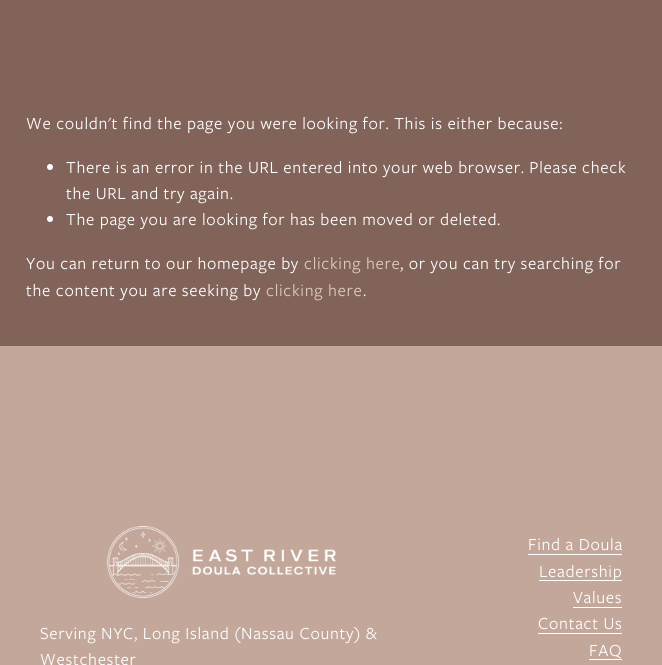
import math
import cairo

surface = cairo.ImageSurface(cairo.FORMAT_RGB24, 662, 665)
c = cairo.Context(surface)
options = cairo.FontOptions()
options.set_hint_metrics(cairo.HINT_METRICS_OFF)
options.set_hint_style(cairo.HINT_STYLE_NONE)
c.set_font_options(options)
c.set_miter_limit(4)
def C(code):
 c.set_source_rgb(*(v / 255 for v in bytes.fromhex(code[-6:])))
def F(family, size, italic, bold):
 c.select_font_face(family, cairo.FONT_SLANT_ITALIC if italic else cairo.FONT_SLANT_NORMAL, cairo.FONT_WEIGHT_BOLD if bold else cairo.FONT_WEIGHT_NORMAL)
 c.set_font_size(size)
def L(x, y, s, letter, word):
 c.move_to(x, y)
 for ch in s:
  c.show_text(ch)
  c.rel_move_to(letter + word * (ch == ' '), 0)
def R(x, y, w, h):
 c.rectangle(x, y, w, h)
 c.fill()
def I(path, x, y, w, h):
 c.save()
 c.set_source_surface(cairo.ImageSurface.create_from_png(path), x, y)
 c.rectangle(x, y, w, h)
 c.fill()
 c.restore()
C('81635a')
c.paint()
F('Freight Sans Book',17.6,0,0)
C('ffffff')
L(26,129,'We couldn\'t find the page you were looking for. This is either because:',.7,0)
c.new_path()
c.arc(50,167,3,0,2 * math.pi)
c.fill()
L(66,173,'There is an error in the URL entered into your web browser. Please check',.7,0)
L(66,199,'the URL and try again.',.7,0)
c.new_path()
c.arc(50,219,3,0,2 * math.pi)
c.fill()
L(66,225,'The page you are looking for has been moved or deleted.',.7,0)
L(26,269,'You can return to our homepage by',.7,0)
C('ddcbc3')
L(304,269,'clicking here',.7,0)
C('ffffff')
L(400,269,', or you can try searching for',.7,0)
L(26,296,'the content you are seeking by',.7,0)
C('ddcbc3')
L(266,296,'clicking here',.7,0)
C('ffffff')
L(363,296,'.',.7,0)
C('c2a79a')
R(0,346,662,319)
I('1.png',107,526,229,72)
C('ffffff')
L(528,550,'Find a Doula',.7,0)
R(528,554,94,1)
R(539,580,83,1)
L(539,577,'Leadership',.7,0)
L(573,603,'Values',.7,0)
R(573,607,49,1)
L(538,629,'Contact Us',.7,0)
R(538,633,84,1)
L(589,656,'FAQ',.7,0)
R(589,659,33,1)
L(40,639,'Serving NYC, Long Island (Nassau County) &',.7,0)
L(40,665,'Westchester',.7,0)
surface.write_to_png('o.png')
